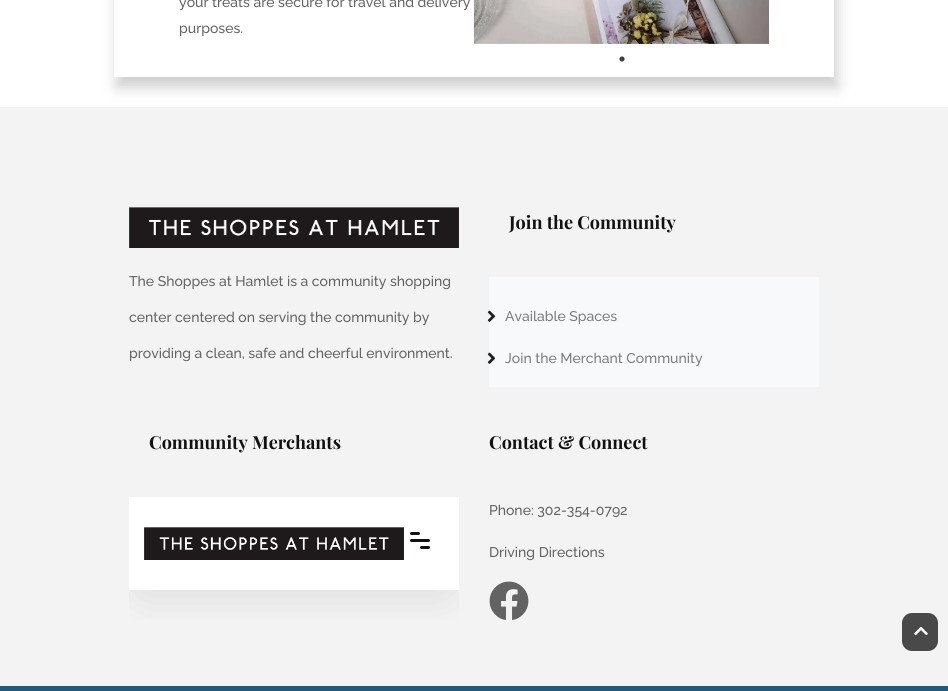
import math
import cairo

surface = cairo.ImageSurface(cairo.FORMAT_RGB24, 948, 691)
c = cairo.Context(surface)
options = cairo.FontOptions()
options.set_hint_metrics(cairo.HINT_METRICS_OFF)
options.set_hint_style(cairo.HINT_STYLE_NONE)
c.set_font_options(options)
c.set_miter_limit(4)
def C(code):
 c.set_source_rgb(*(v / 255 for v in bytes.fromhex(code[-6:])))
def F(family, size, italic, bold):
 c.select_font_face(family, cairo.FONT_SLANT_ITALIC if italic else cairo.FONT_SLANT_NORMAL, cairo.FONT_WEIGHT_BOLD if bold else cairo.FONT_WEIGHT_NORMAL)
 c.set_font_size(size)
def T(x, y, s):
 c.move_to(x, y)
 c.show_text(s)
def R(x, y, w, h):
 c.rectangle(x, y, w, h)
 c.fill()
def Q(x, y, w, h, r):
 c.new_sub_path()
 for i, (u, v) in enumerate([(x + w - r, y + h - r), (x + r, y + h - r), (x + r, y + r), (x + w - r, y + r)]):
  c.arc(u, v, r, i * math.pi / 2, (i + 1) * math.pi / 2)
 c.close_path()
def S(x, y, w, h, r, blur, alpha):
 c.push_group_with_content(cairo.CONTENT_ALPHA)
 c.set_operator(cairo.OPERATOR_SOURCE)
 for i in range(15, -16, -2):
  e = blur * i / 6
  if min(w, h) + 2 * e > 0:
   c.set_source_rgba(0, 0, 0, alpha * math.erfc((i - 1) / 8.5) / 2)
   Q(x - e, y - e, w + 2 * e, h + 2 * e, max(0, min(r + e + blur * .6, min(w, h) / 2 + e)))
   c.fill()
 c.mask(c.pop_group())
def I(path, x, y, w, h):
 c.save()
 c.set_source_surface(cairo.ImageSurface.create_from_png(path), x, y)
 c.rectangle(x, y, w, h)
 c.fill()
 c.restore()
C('ffffff')
c.paint()
c.save()
c.set_fill_rule(cairo.FILL_RULE_EVEN_ODD)
c.new_path()
c.move_to(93,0)
c.line_to(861,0)
c.line_to(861,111)
c.line_to(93,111)
c.close_path()
c.move_to(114,-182)
c.line_to(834,-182)
c.line_to(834,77)
c.line_to(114,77)
c.close_path()
c.clip()
C('000000')
S(117,-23,720,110,0,7.5,.2)
c.restore()
F('Raleway Medium',14,0,0)
C('636363')
T(179,7,'your treats are secure for travel and delivery')
T(179,33,'purposes.')
I('1.png',474,0,295,44)
I('2.png',619,56,6,6)
C('f3f3f3')
R(0,107,948,579)
I('3.png',129,207,330,41)
C('636363')
T(129,286,'The Shoppes at Hamlet is a community shopping')
T(129,322,'center centered on serving the community by')
T(129,358,'providing a clean, safe and cheerful environment.')
F('Playfair Display',18,0,1)
C('111111')
T(509,229,'Join the Community')
C('f8f9fa')
R(489,277,330,110)
I('4.png',487,310,9,12)
F('Raleway Medium',14,0,0)
C('7c7d7d')
T(505,321,'Available Spaces')
I('4.png',487,352,9,12)
T(505,363,'Join the Merchant Community')
F('Playfair Display',18,0,1)
C('111111')
T(149,449,'Community Merchants')
C('ffffff')
R(129,497,330,93)
I('6.png',489,581,40,40)
c.save()
c.rectangle(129,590,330,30)
c.clip()
C('000000')
S(134,545,320,50,25,20,.1)
c.restore()
I('5.png',144,527,260,33)
C('111111')
Q(410,532,10,3,1.5)
c.fill()
Q(410,539,20,3,1.5)
c.fill()
Q(420,546,10,3,1.5)
c.fill()
T(489,449,'Contact & Connect')
F('Raleway Medium',14,0,0)
C('636363')
T(489,515,'Phone: 302-354-0792')
T(489,557,'Driving Directions')
C('24597b')
R(0,686,948,5)
C('494949')
Q(902,613,36,38,10)
c.fill()
I('7.png',914,626,14,10)
surface.write_to_png('o.png')
